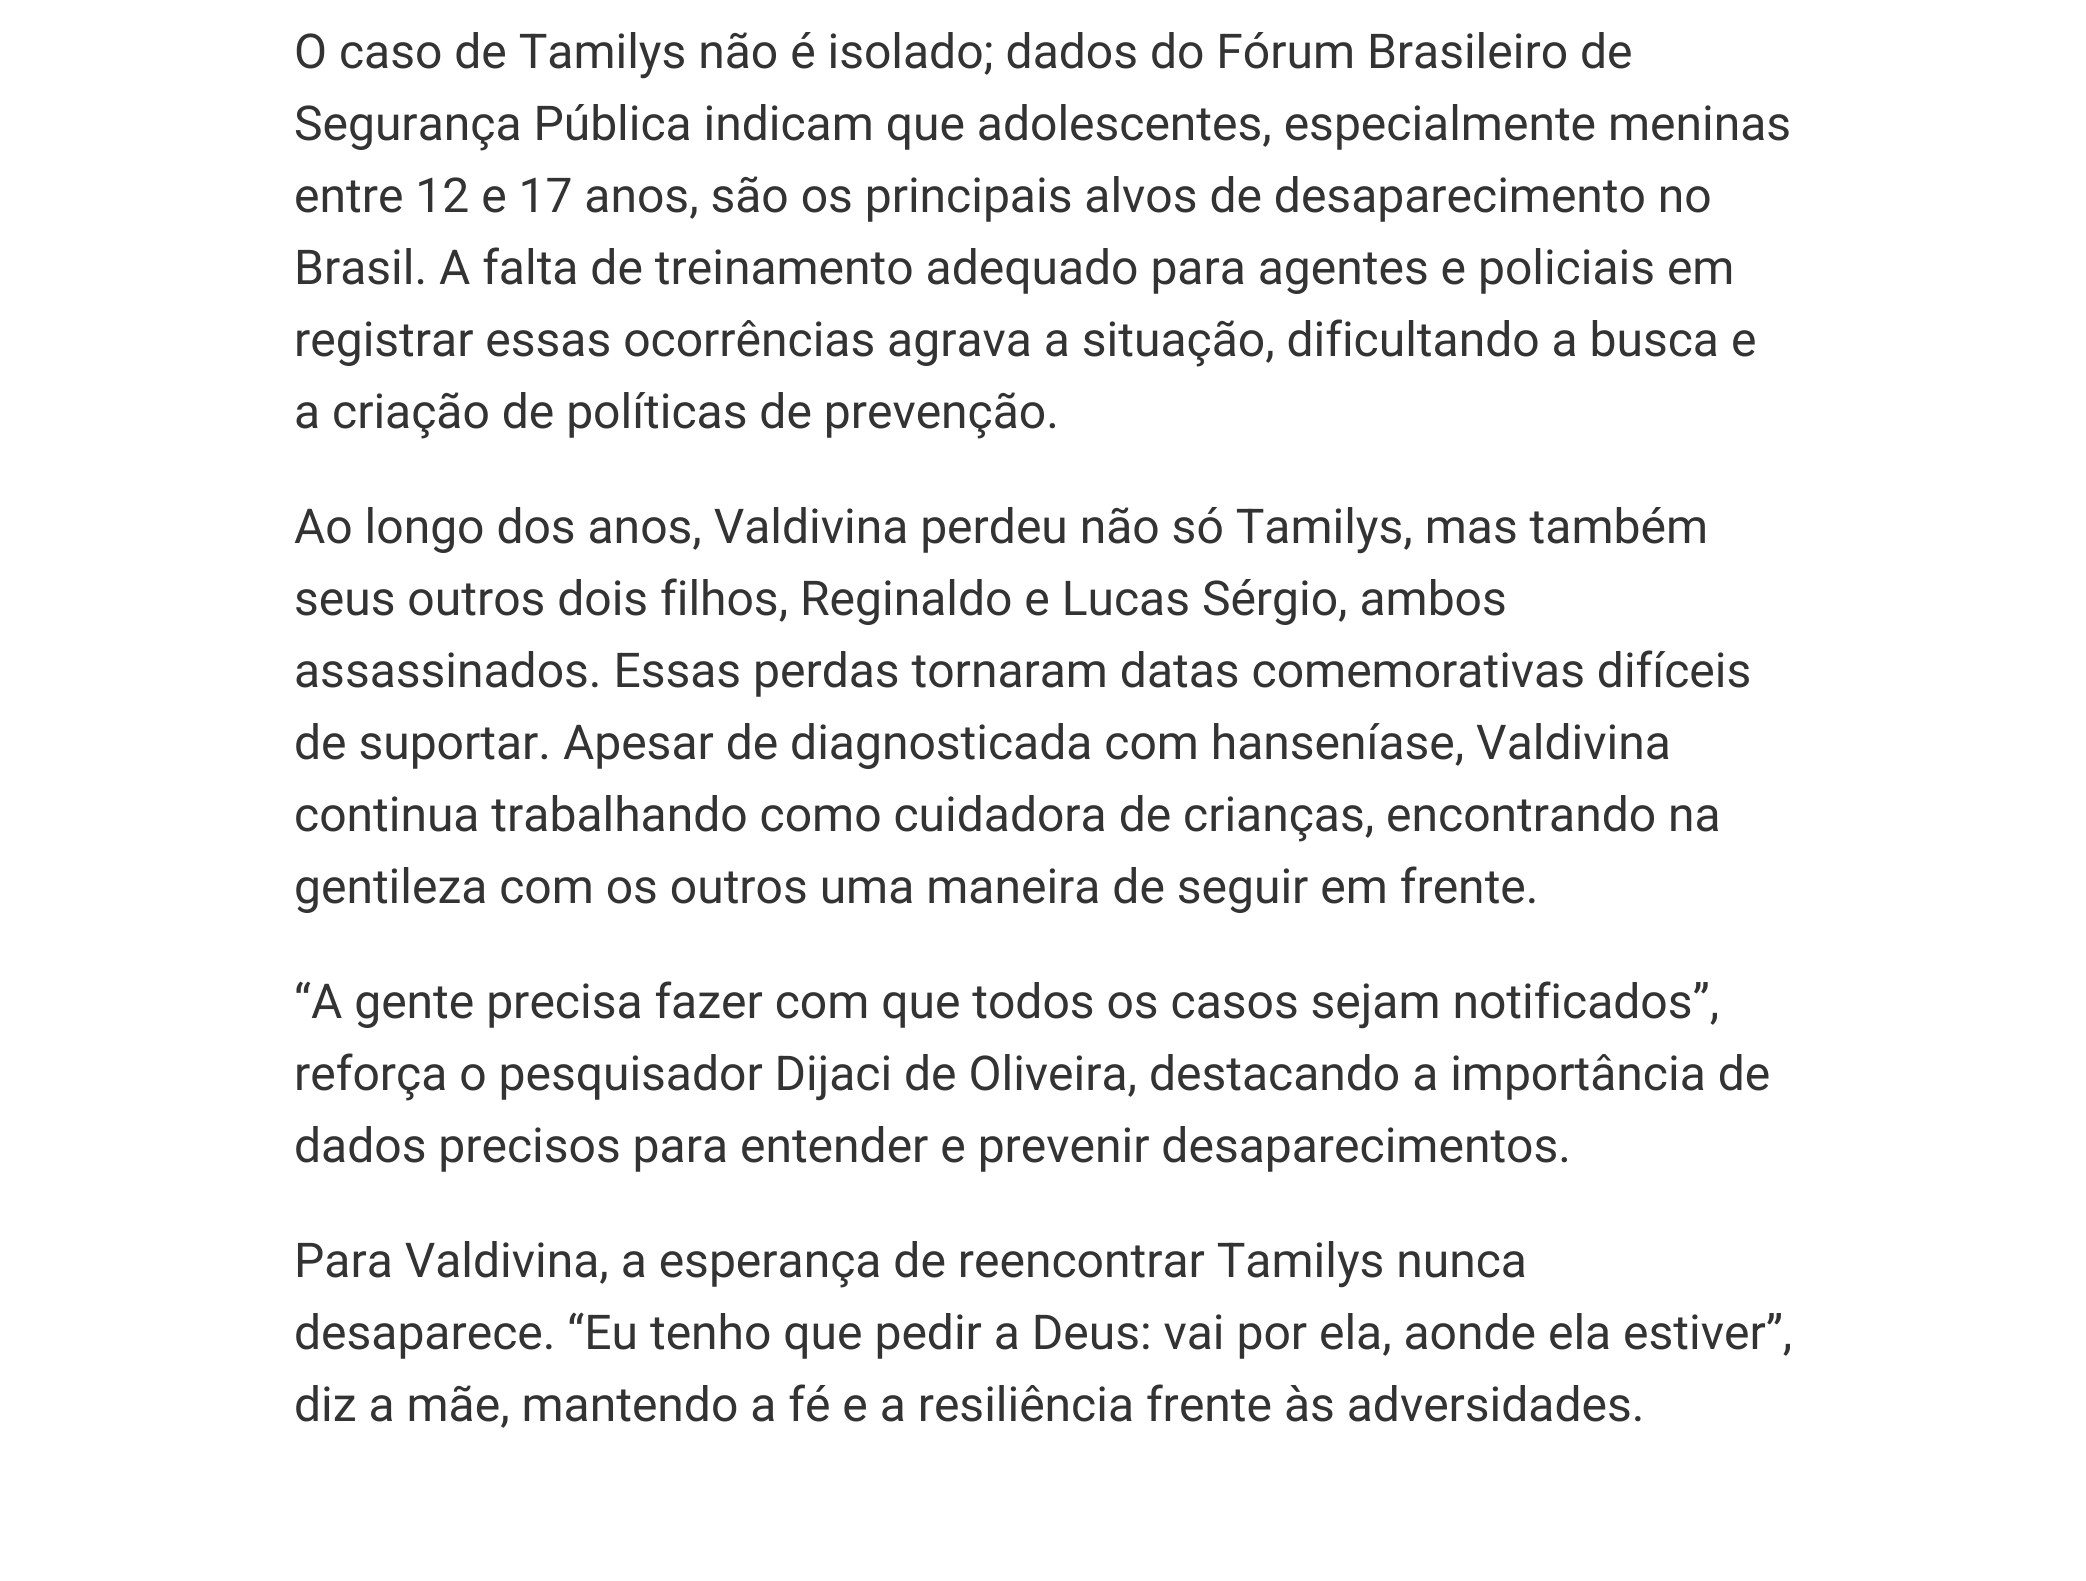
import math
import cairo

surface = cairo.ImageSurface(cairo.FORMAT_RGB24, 2086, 1581)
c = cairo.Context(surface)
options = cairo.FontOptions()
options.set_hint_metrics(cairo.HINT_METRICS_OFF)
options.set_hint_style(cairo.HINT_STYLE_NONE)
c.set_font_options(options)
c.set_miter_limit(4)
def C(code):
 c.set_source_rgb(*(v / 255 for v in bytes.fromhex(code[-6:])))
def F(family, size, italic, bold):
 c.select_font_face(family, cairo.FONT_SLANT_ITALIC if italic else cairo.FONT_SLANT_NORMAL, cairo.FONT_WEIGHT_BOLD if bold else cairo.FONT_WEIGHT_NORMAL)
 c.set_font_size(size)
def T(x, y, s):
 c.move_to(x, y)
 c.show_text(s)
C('ffffff')
c.paint()
F('Roboto',48,0,0)
C('333333')
T(294,68,'O caso de Tamilys não é isolado; dados do Fórum Brasileiro de')
T(294,140,'Segurança Pública indicam que adolescentes, especialmente meninas')
T(294,212,'entre 12 e 17 anos, são os principais alvos de desaparecimento no')
T(294,284,'Brasil. A falta de treinamento adequado para agentes e policiais em')
T(294,356,'registrar essas ocorrências agrava a situação, dificultando a busca e')
T(294,428,'a criação de políticas de prevenção.')
T(294,543,'Ao longo dos anos, Valdivina perdeu não só Tamilys, mas também')
T(294,615,'seus outros dois filhos, Reginaldo e Lucas Sérgio, ambos')
T(294,687,'assassinados. Essas perdas tornaram datas comemorativas difíceis')
T(294,759,'de suportar. Apesar de diagnosticada com hanseníase, Valdivina')
T(294,831,'continua trabalhando como cuidadora de crianças, encontrando na')
T(294,903,'gentileza com os outros uma maneira de seguir em frente.')
T(294,1018,'“A gente precisa fazer com que todos os casos sejam notificados”,')
T(294,1090,'reforça o pesquisador Dijaci de Oliveira, destacando a importância de')
T(294,1162,'dados precisos para entender e prevenir desaparecimentos.')
T(294,1277,'Para Valdivina, a esperança de reencontrar Tamilys nunca')
T(294,1349,'desaparece. “Eu tenho que pedir a Deus: vai por ela, aonde ela estiver”,')
T(294,1421,'diz a mãe, mantendo a fé e a resiliência frente às adversidades.')
surface.write_to_png('o.png')
